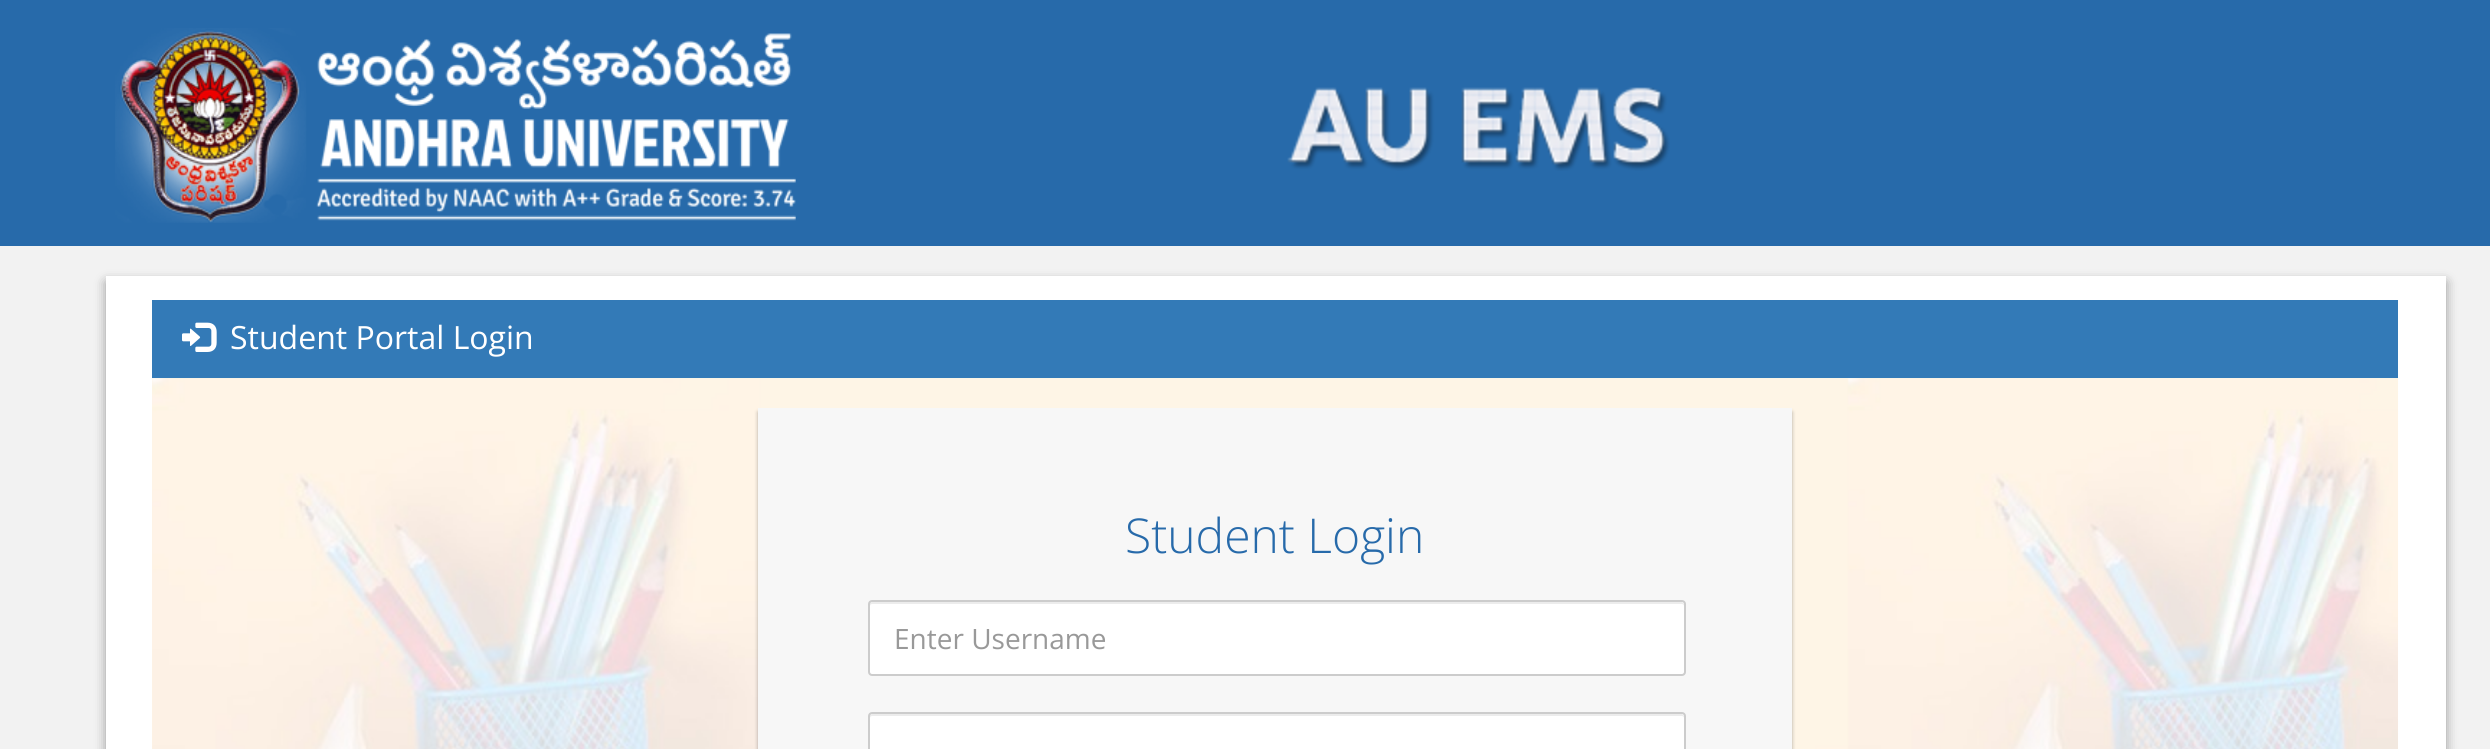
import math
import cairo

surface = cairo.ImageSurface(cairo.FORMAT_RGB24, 2490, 749)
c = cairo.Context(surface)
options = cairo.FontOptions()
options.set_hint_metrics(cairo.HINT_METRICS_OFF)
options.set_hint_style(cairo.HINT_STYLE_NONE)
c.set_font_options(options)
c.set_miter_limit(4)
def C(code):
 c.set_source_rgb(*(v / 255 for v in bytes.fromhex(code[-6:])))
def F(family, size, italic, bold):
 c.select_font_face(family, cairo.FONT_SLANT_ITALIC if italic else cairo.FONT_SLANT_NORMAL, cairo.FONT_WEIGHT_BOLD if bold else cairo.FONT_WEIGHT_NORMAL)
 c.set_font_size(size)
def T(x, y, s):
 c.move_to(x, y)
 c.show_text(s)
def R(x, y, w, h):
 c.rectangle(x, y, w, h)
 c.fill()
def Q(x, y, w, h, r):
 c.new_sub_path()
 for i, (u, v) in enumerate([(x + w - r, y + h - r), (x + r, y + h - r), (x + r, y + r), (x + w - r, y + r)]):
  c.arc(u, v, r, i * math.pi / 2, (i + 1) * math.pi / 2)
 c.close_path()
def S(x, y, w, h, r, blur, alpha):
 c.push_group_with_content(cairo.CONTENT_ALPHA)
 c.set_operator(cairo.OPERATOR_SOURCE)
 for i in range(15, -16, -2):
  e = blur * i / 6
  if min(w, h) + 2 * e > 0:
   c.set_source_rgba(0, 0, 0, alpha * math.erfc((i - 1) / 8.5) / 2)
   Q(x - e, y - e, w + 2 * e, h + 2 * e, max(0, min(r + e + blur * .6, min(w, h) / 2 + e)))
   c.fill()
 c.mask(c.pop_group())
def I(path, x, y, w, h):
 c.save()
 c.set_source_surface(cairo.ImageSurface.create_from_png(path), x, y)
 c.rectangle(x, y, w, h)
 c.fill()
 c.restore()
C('f2f2f2')
c.paint()
C('276aaa')
R(0,0,2490,246)
I('1.png',115,28,681,195)
I('2.png',1287,87,383,84)
C('000000')
S(106,282,2340,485,0,6,.23)
S(106,282,2340,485,0,6,.16)
C('ffffff')
R(106,276,2340,473)
C('337ab7')
R(152,300,2246,78)
I('3.png',182,322,35,30)
F('Open Sans',32,0,0)
C('ffffff')
T(230,349,'Student Portal Login')
I('4.png',152,378,2246,371)
C('000000')
S(758,412,1034,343,0,2,.3)
C('f7f7f7')
R(758,408,1034,341)
F('Open Sans Light',48,0,0)
C('276aaa')
T(1125,553,'Student Login')
C('ffffff')
Q(870,602,814,72,2)
c.fill()
C('ececec')
c.new_path()
c.move_to(872,604)
c.line_to(1682,604)
c.curve_to(1683,604,1684,605,1684,606)
c.curve_to(1684,605,1684,603,1683,603)
c.line_to(1682,602)
c.line_to(872,602)
c.line_to(870,603)
c.line_to(870,606)
c.curve_to(870,605,871,604,872,604)
c.close_path()
c.fill()
Q(869,601,816,74,3)
C('cccccc')
c.stroke()
F('Open Sans',28,0,0)
C('999999')
T(894,649,'Enter Username')
C('ffffff')
Q(870,714,814,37,2)
c.fill()
C('ececec')
c.new_path()
c.move_to(872,716)
c.line_to(1682,716)
c.curve_to(1683,716,1684,717,1684,718)
c.curve_to(1684,717,1684,715,1683,715)
c.line_to(1682,714)
c.line_to(872,714)
c.line_to(870,715)
c.line_to(870,718)
c.curve_to(870,717,871,716,872,716)
c.close_path()
c.fill()
Q(869,713,816,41,3)
C('cccccc')
c.stroke()
surface.write_to_png('o.png')
